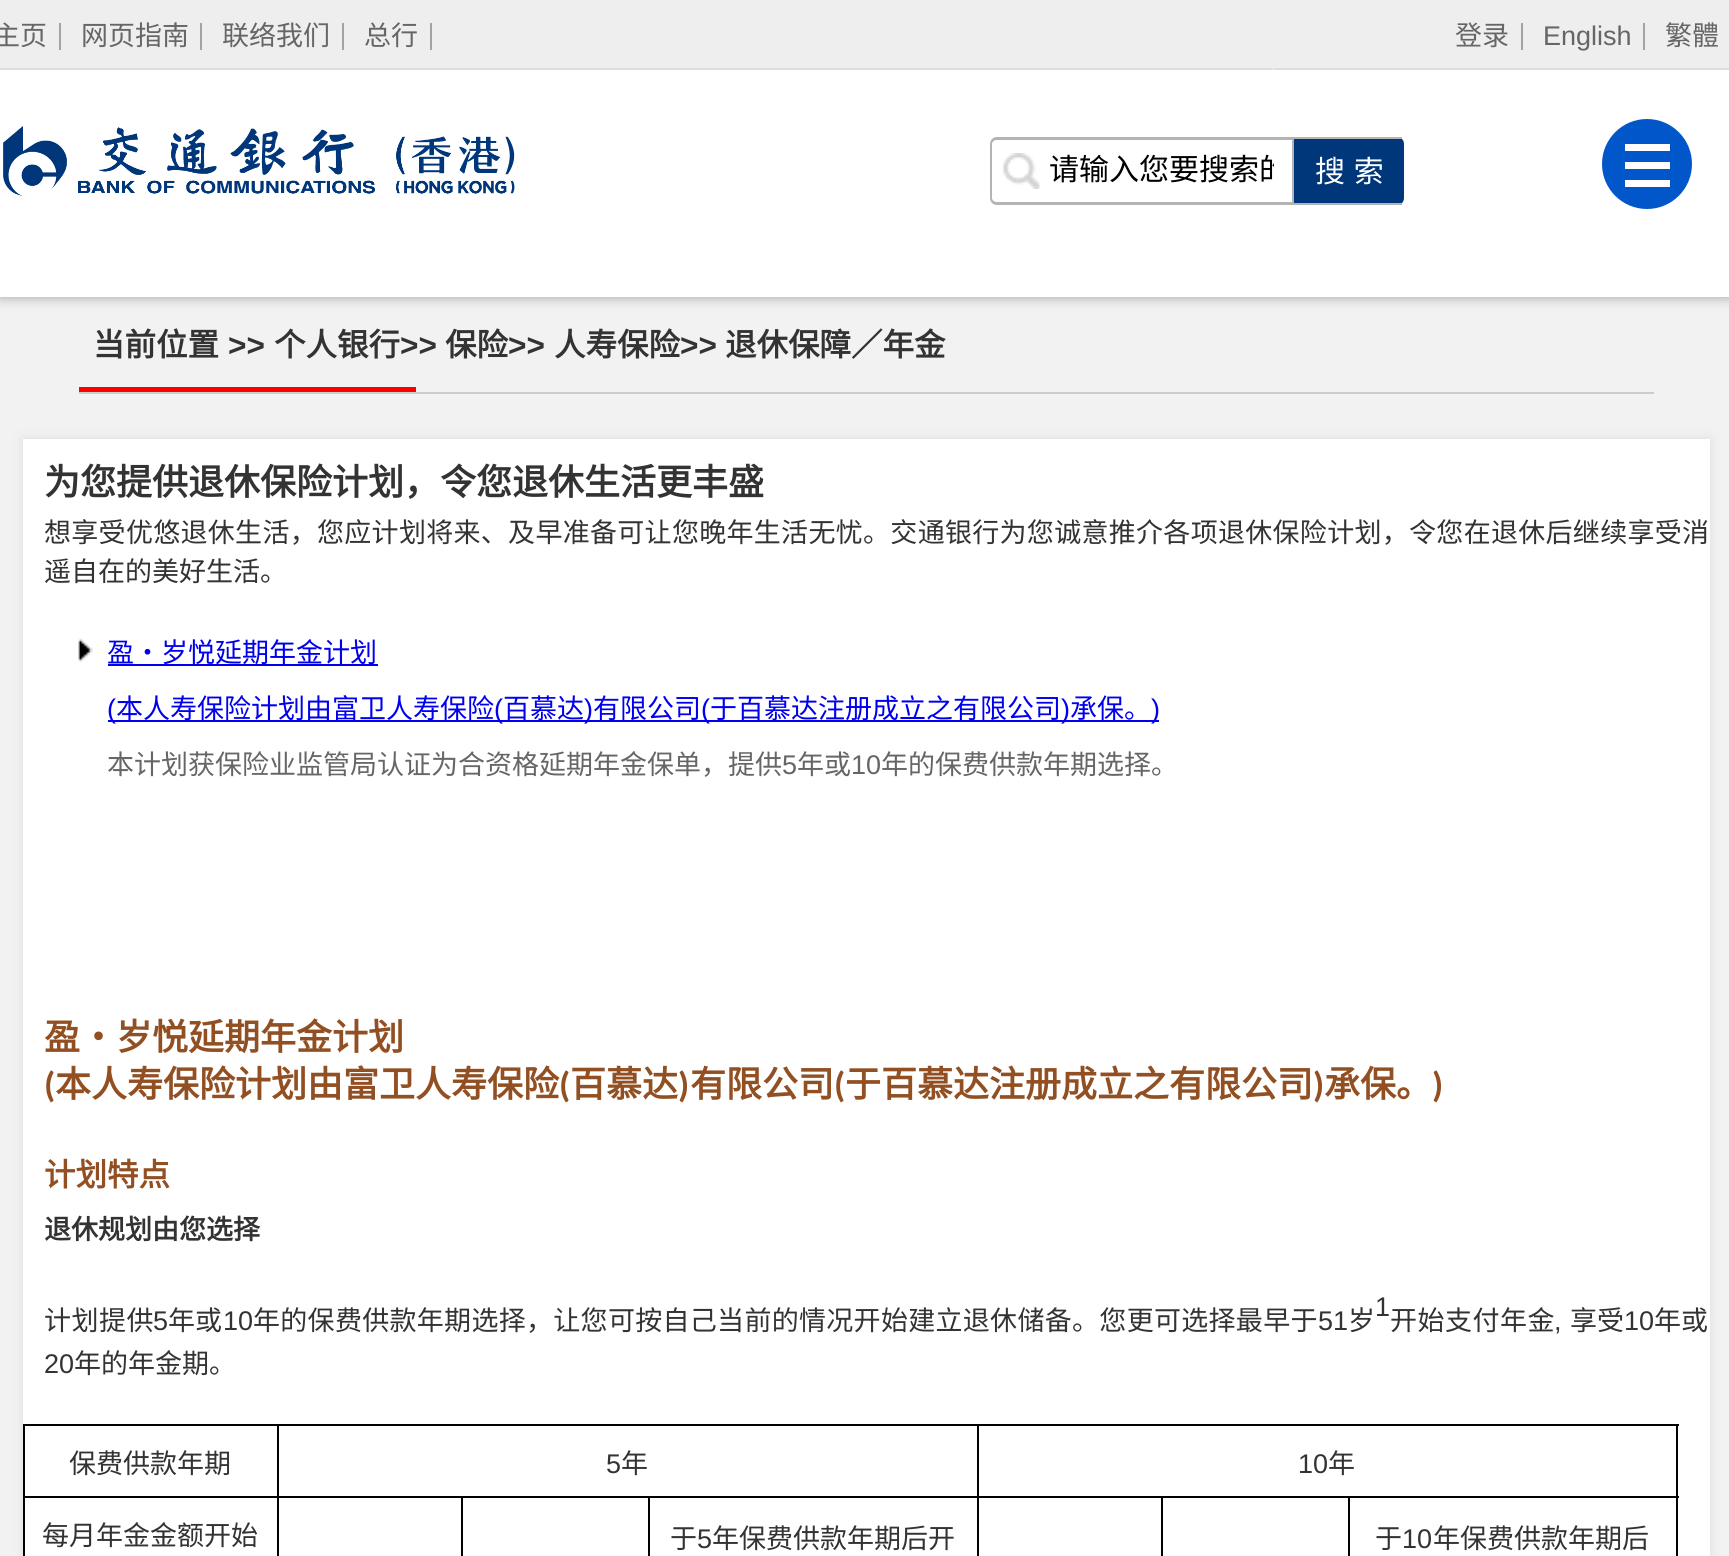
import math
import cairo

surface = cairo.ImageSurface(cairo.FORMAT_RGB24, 1729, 1556)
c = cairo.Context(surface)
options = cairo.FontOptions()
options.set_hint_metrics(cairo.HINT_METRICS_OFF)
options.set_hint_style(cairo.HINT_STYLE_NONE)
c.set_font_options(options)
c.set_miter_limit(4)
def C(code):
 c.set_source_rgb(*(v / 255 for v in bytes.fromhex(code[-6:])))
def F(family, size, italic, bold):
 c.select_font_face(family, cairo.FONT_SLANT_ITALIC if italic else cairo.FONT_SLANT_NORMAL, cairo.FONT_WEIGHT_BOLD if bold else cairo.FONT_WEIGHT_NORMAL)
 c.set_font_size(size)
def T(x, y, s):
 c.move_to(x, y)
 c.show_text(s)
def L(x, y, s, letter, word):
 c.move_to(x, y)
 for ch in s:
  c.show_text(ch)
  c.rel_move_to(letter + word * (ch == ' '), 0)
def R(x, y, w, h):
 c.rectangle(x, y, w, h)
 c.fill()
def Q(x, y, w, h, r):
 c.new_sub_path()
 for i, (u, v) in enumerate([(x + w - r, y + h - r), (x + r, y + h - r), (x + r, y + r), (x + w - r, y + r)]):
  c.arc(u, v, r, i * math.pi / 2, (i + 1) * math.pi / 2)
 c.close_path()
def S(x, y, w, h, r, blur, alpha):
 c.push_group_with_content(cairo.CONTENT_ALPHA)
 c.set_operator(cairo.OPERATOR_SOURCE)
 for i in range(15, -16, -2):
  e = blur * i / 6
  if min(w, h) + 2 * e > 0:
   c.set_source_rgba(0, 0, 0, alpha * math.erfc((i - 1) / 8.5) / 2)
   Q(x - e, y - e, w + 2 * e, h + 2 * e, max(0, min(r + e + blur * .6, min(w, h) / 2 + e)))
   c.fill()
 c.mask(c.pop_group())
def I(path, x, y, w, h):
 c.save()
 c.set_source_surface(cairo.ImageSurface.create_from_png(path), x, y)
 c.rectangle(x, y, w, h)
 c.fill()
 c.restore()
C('f2f2f2')
c.paint()
C('868686')
S(0,-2,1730,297,0,7,1)
C('ffffff')
R(0,70,1729,227)
C('eeeeee')
R(0,0,1729,68)
C('dddddd')
R(0,68,1729,2)
C('a3a3a3')
R(59,23,2,27)
F('Noto Sans CJK SC',27,0,0)
C('666666')
T(-7,45,'主页')
C('a3a3a3')
R(200,23,2,27)
C('666666')
T(81,45,'网页指南')
C('a3a3a3')
R(342,23,2,27)
C('666666')
T(222,45,'联络我们')
C('a3a3a3')
R(430,23,2,27)
C('666666')
T(364,45,'总行')
C('a3a3a3')
R(1521,23,2,27)
C('666666')
T(1455,45,'登录')
C('a3a3a3')
R(1643,23,2,27)
F('Liberation Sans',27,0,0)
C('666666')
T(1543,45,'English')
F('Noto Sans CJK SC',27,0,0)
T(1665,45,'繁體')
C('eeeeee')
c.new_path()
c.move_to(1271,68)
c.line_to(1726,68)
c.curve_to(1726,69,1725,70,1724,70)
c.line_to(1273,70)
c.curve_to(1272,70,1271,69,1271,68)
c.close_path()
c.fill()
C('dddddd')
R(1274,68,452,2)
c.arc(1272,69,1,0,2 * math.pi)
c.fill()
I('1.png',3,126,512,70)
I('2.png',1003,153,37,36)
C('b4b4b4')
c.set_fill_rule(cairo.FILL_RULE_EVEN_ODD)
c.new_path()
c.move_to(997,137)
c.line_to(1292,137)
c.line_to(1292,205)
c.line_to(997,205)
c.curve_to(993,205,990,202,990,198)
c.line_to(990,144)
c.curve_to(990,140,993,137,997,137)
c.close_path()
c.move_to(997,140)
c.line_to(1292,140)
c.line_to(1292,202)
c.line_to(997,202)
c.curve_to(994,202,992,200,992,198)
c.line_to(992,144)
c.curve_to(992,142,994,140,997,140)
c.close_path()
c.fill()
c.save()
c.set_fill_rule(cairo.FILL_RULE_WINDING)
c.rectangle(1049,146,225,43)
c.clip()
F('Noto Sans CJK SC',30,0,0)
C('000000')
T(1049,180,'请输入您要搜索的')
c.restore()
C('00377a')
c.new_path()
c.move_to(1292,137)
c.line_to(1397,137)
c.curve_to(1401,137,1404,140,1404,144)
c.line_to(1404,198)
c.curve_to(1404,202,1401,205,1397,205)
c.line_to(1292,205)
c.close_path()
c.fill()
C('b4b4b4')
R(1292,137,110,2)
R(1292,203,110,2)
R(1292,137,2,68)
F('Noto Sans CJK SC',30,0,0)
C('ffffff')
L(1315,182,'搜 索',0,2)
C('0156ca')
c.new_path()
c.arc(1647,164,45,0,2 * math.pi)
c.fill()
C('ffffff')
R(1625,144,45,7)
R(1625,180,45,7)
R(1625,162,45,7)
C('cccccc')
R(79,392,1575,2)
F('Noto Sans CJK SC',31.5,0,1)
C('333333')
T(93,356,'当前位置')
F('Liberation Sans',31.5,0,1)
T(228,356,'>>')
F('Noto Sans CJK SC',31.5,0,1)
T(274,356,'个人银行')
F('Liberation Sans',31.5,0,1)
T(400,356,'>>')
F('Noto Sans CJK SC',31.5,0,1)
T(445,356,'保险')
F('Liberation Sans',31.5,0,1)
T(508,356,'>>')
F('Noto Sans CJK SC',31.5,0,1)
T(554,356,'人寿保险')
F('Liberation Sans',31.5,0,1)
T(680,356,'>>')
F('Noto Sans CJK SC',31.5,0,1)
T(725,356,'退休保障／年金')
C('ff0000')
R(79,387,337,5)
C('dddddd')
S(23,439,1687,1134,0,5.5,1)
C('ffffff')
R(23,439,1687,1117)
F('Noto Sans CJK SC',36,0,1)
C('333333')
T(44,495,'为您提供退休保险计划，令您退休生活更丰盛')
F('Noto Sans CJK SC',27,0,0)
L(44,542,'想享受优悠退休生活，您应计划将来、及早准备可让您晚年生活无忧。交通银行为您诚意推介各项退休保险计划，令您在退休后继续享受消',.3,0)
T(44,581,'遥自在的美好生活。')
I('3.png',78,638,15,24)
C('0000ee')
R(108,664,270,2)
T(107,662,'盈‧岁悦延期年金计划')
R(108,720,1051,2)
F('Liberation Sans',27,0,0)
T(107,718,'(')
F('Noto Sans CJK SC',27,0,0)
T(116,718,'本人寿保险计划由富卫人寿保险')
F('Liberation Sans',27,0,0)
T(494,718,'(')
F('Noto Sans CJK SC',27,0,0)
T(503,718,'百慕达')
F('Liberation Sans',27,0,0)
T(584,718,')')
F('Noto Sans CJK SC',27,0,0)
T(593,718,'有限公司')
F('Liberation Sans',27,0,0)
T(701,718,'(')
F('Noto Sans CJK SC',27,0,0)
T(710,718,'于百慕达注册成立之有限公司')
F('Liberation Sans',27,0,0)
T(1061,718,')')
F('Noto Sans CJK SC',27,0,0)
T(1070,718,'承保。')
F('Liberation Sans',27,0,0)
T(1151,718,')')
F('Noto Sans CJK SC',27,0,0)
C('666666')
T(107,774,'本计划获保险业监管局认证为合资格延期年金保单，提供')
F('Liberation Sans',27,0,0)
T(782,774,'5')
F('Noto Sans CJK SC',27,0,0)
T(797,774,'年或')
F('Liberation Sans',27,0,0)
T(851,774,'10')
F('Noto Sans CJK SC',27,0,0)
T(881,774,'年的保费供款年期选择。')
F('Noto Sans CJK SC',36,0,1)
C('924f22')
T(44,1050,'盈‧岁悦延期年金计划')
F('Carlito',36,0,1)
T(44,1097,'(')
F('Noto Sans CJK SC',36,0,1)
T(55,1097,'本人寿保险计划由富卫人寿保险')
F('Carlito',36,0,1)
T(559,1097,'(')
F('Noto Sans CJK SC',36,0,1)
T(570,1097,'百慕达')
F('Carlito',36,0,1)
T(678,1097,')')
F('Noto Sans CJK SC',36,0,1)
T(690,1097,'有限公司')
F('Carlito',36,0,1)
T(834,1097,'(')
F('Noto Sans CJK SC',36,0,1)
T(845,1097,'于百慕达注册成立之有限公司')
F('Carlito',36,0,1)
T(1313,1097,')')
F('Noto Sans CJK SC',36,0,1)
T(1324,1097,'承保。')
F('Carlito',36,0,1)
T(1432,1097,')')
F('Noto Sans CJK SC',31.5,0,1)
T(44,1186,'计划特点')
F('Noto Sans CJK SC',27,0,1)
C('333333')
T(44,1239,'退休规划由您选择')
F('Noto Sans CJK SC',27,0,0)
L(44,1330,'计划提供',.5,0)
F('Liberation Sans',27,0,0)
T(153,1330,'5')
F('Noto Sans CJK SC',27,0,0)
T(168,1330,'年或')
F('Liberation Sans',27,0,0)
T(223,1330,'10')
F('Noto Sans CJK SC',27,0,0)
L(253,1330,'年的保费供款年期选择，让您可按自己当前的情况开始建立退休储备。您更可选择最早于',.3,0)
F('Liberation Sans',27,0,0)
T(1318,1330,'51')
F('Noto Sans CJK SC',27,0,0)
T(1348,1330,'岁')
F('Liberation Sans',27,0,0)
T(1375,1316,'1')
F('Noto Sans CJK SC',27,0,0)
L(1390,1330,'开始支付年金',.5,0)
F('Liberation Sans',27,0,0)
T(1554,1330,',')
F('Noto Sans CJK SC',27,0,0)
T(1570,1330,'享受')
F('Liberation Sans',27,0,0)
T(1624,1330,'10')
F('Noto Sans CJK SC',27,0,0)
T(1654,1330,'年或')
F('Liberation Sans',27,0,0)
T(44,1373,'20')
F('Noto Sans CJK SC',27,0,0)
T(74,1373,'年的年金期。')
C('000000')
R(23,1424,1656,2)
R(1676,1496,2,60)
R(1676,1424,2,75)
R(977,1496,2,60)
R(1161,1496,2,60)
R(1348,1496,2,60)
R(977,1496,702,2)
R(977,1424,2,75)
R(277,1496,2,60)
R(461,1496,2,60)
R(648,1496,2,60)
R(277,1496,702,2)
R(277,1424,2,75)
R(23,1496,2,60)
R(23,1496,256,2)
R(23,1424,2,75)
C('333333')
T(69,1473,'保费供款年期')
F('Liberation Sans',27,0,0)
T(606,1473,'5')
F('Noto Sans CJK SC',27,0,0)
T(621,1473,'年')
F('Liberation Sans',27,0,0)
T(1298,1473,'10')
F('Noto Sans CJK SC',27,0,0)
T(1328,1473,'年')
T(42,1545,'每月年金金额开始')
T(670,1548,'于')
F('Liberation Sans',27,0,0)
T(697,1548,'5')
F('Noto Sans CJK SC',27,0,0)
T(712,1548,'年保费供款年期后开')
T(1375,1548,'于')
F('Liberation Sans',27,0,0)
T(1402,1548,'10')
F('Noto Sans CJK SC',27,0,0)
T(1433,1548,'年保费供款年期后')
surface.write_to_png('o.png')
